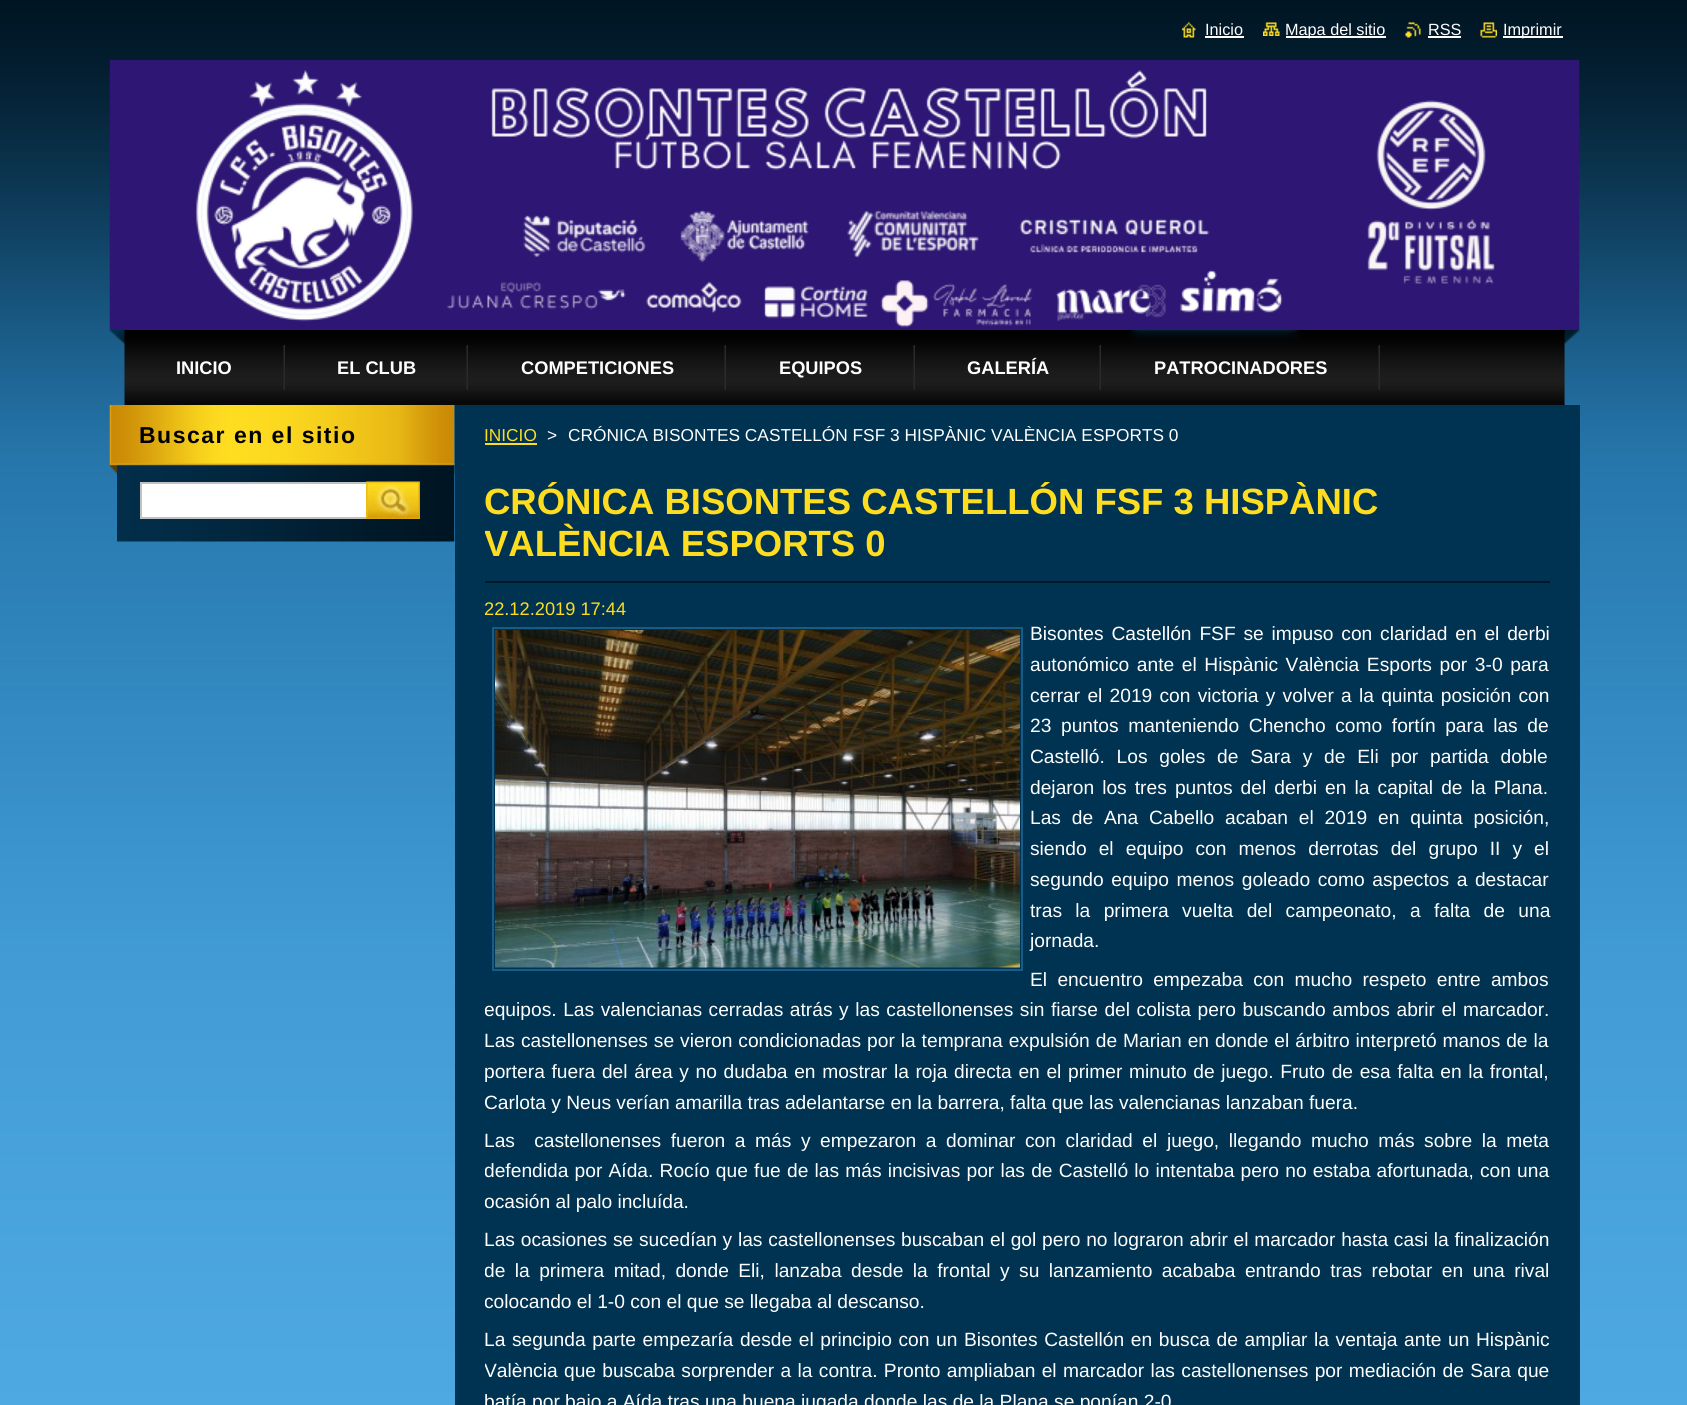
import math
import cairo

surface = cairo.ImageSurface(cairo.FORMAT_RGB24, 1687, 1405)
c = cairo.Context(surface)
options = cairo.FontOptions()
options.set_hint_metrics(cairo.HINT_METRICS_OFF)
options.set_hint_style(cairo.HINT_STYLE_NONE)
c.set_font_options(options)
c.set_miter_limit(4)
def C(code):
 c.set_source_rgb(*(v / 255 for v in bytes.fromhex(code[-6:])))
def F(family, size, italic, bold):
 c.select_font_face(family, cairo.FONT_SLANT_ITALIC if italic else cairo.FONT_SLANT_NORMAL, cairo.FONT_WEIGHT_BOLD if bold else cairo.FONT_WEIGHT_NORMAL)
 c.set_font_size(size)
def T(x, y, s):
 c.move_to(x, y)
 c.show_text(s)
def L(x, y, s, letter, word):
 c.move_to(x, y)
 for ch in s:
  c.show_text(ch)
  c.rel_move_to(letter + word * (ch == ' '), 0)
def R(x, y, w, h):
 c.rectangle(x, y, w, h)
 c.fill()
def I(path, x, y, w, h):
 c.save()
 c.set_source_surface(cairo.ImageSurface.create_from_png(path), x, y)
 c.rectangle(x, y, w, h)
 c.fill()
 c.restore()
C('ffffff')
c.paint()
I('1.png',0,0,1687,1405)
I('2.png',1182,22,14,16)
F('Liberation Sans',16.25,0,0)
C('ffffff')
T(1205,35,'Inicio')
R(1205,36,39,2)
I('3.png',1263,22,17,14)
R(1286,36,100,2)
T(1285,35,'Mapa del sitio')
I('4.png',1405,22,16,16)
T(1428,35,'RSS')
R(1428,36,33,2)
I('5.png',1480,22,17,16)
R(1503,36,60,2)
T(1503,35,'Imprimir')
I('6.png',109,60,1471,270)
I('7.png',109,330,1471,75)
I('8.png',283,345,2,45)
F('Liberation Sans',18.25,0,1)
T(176,374,'INICIO')
I('8.png',466,345,2,45)
T(337,374,'EL CLUB')
I('8.png',724,345,2,45)
T(521,374,'COMPETICIONES')
I('8.png',913,345,2,45)
T(779,374,'EQUIPOS')
I('8.png',1099,345,2,45)
T(967,374,'GALERÍA')
I('8.png',1378,345,2,45)
T(1154,374,'PATROCINADORES')
I('9.png',117,405,338,137)
I('10.png',109,405,346,69)
F('Liberation Sans',23,0,1)
C('000000')
L(139,443,'Buscar en el sitio',1.5,0)
C('ffffff')
c.rectangle(141,483,226,35)
c.fill_preserve()
C('c1c1c1')
c.stroke()
I('11.png',366,481,54,38)
C('003251')
R(455,405,1125,1000)
F('Liberation Sans',17.3,0,0)
C('fedc20')
T(484,441,'INICIO')
R(485,443,52,2)
C('ffffff')
T(547,441,'>')
T(568,441,'CRÓNICA BISONTES CASTELLÓN FSF 3 HISPÀNIC VALÈNCIA ESPORTS 0')
C('001929')
R(485,581,1065,2)
c.save()
c.rectangle(485,482,1065,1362)
c.clip()
F('Liberation Sans',36.5,0,1)
C('fedc20')
T(484,514,'CRÓNICA BISONTES CASTELLÓN FSF 3 HISPÀNIC')
T(484,556,'VALÈNCIA ESPORTS 0')
c.restore()
c.save()
c.rectangle(485,597,1065,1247)
c.clip()
F('Liberation Sans',18.25,0,0)
C('fedc20')
T(484,615,'22.12.2019 17:44')
c.restore()
c.rectangle(493,628,529,342)
C('165c87')
c.stroke()
I('12.png',495,630,525,338)
F('Liberation Sans',19.2,0,0)
C('ffffff')
L(1030,640,'Bisontes Castellón FSF se impuso con claridad en el derbi',0,2.5)
L(1030,671,'autonómico ante el Hispànic València Esports por 3-0 para',0,2.25)
L(1030,702,'cerrar el 2019 con victoria y volver a la quinta posición con',0,1.9)
L(1030,732,'23 puntos manteniendo Chencho como fortín para las de',0,4.25)
L(1030,763,'Castelló. Los goles de Sara y de Eli por partida doble',0,6.5)
L(1030,794,'dejaron los tres puntos del derbi en la capital de la Plana.',0,2.75)
L(1030,824,'Las de Ana Cabello acaban el 2019 en quinta posición,',0,5.5)
L(1030,855,'siendo el equipo con menos derrotas del grupo II y el',0,6.75)
L(1030,886,'segundo equipo menos goleado como aspectos a destacar',0,2.25)
L(1030,917,'tras la primera vuelta del campeonato, a falta de una',0,8)
T(1030,947,'jornada.')
L(1030,986,'El encuentro empezaba con mucho respeto entre ambos',0,5)
c.save()
c.rectangle(485,597,1065,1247)
c.clip()
L(484,1016,'equipos. Las valencianas cerradas atrás y las castellonenses sin fiarse del colista pero buscando ambos abrir el marcador.',0,1.2)
c.restore()
L(484,1047,'Las castellonenses se vieron condicionadas por la temprana expulsión de Marian en donde el árbitro interpretó manos de la',0,.6)
L(484,1078,'portera fuera del área y no dudaba en mostrar la roja directa en el primer minuto de juego. Fruto de esa falta en la frontal,',0,1.3)
c.save()
c.rectangle(485,597,1065,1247)
c.clip()
T(484,1109,'Carlota y Neus verían amarilla tras adelantarse en la barrera, falta que las valencianas lanzaban fuera.')
c.restore()
L(484,1147,'Las  castellonenses fueron a más y empezaron a dominar con claridad el juego, llegando mucho más sobre la meta',0,4.25)
c.save()
c.rectangle(485,597,1065,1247)
c.clip()
L(484,1177,'defendida por Aída. Rocío que fue de las más incisivas por las de Castelló lo intentaba pero no estaba afortunada, con una',0,.85)
T(484,1208,'ocasión al palo incluída.')
c.restore()
L(484,1246,'Las ocasiones se sucedían y las castellonenses buscaban el gol pero no lograron abrir el marcador hasta casi la finalización',0,.4)
c.save()
c.rectangle(485,597,1065,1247)
c.clip()
L(484,1277,'de la primera mitad, donde Eli, lanzaba desde la frontal y su lanzamiento acababa entrando tras rebotar en una rival',0,4.1)
T(484,1308,'colocando el 1-0 con el que se llegaba al descanso.')
c.restore()
L(484,1346,'La segunda parte empezaría desde el principio con un Bisontes Castellón en busca de ampliar la ventaja ante un Hispànic',0,1.25)
c.save()
c.rectangle(485,597,1065,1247)
c.clip()
L(484,1377,'València que buscaba sorprender a la contra. Pronto ampliaban el marcador las castellonenses por mediación de Sara que',0,1)
c.restore()
T(484,1408,'batía por bajo a Aída tras una buena jugada donde las de la Plana se ponían 2-0')
surface.write_to_png('o.png')
